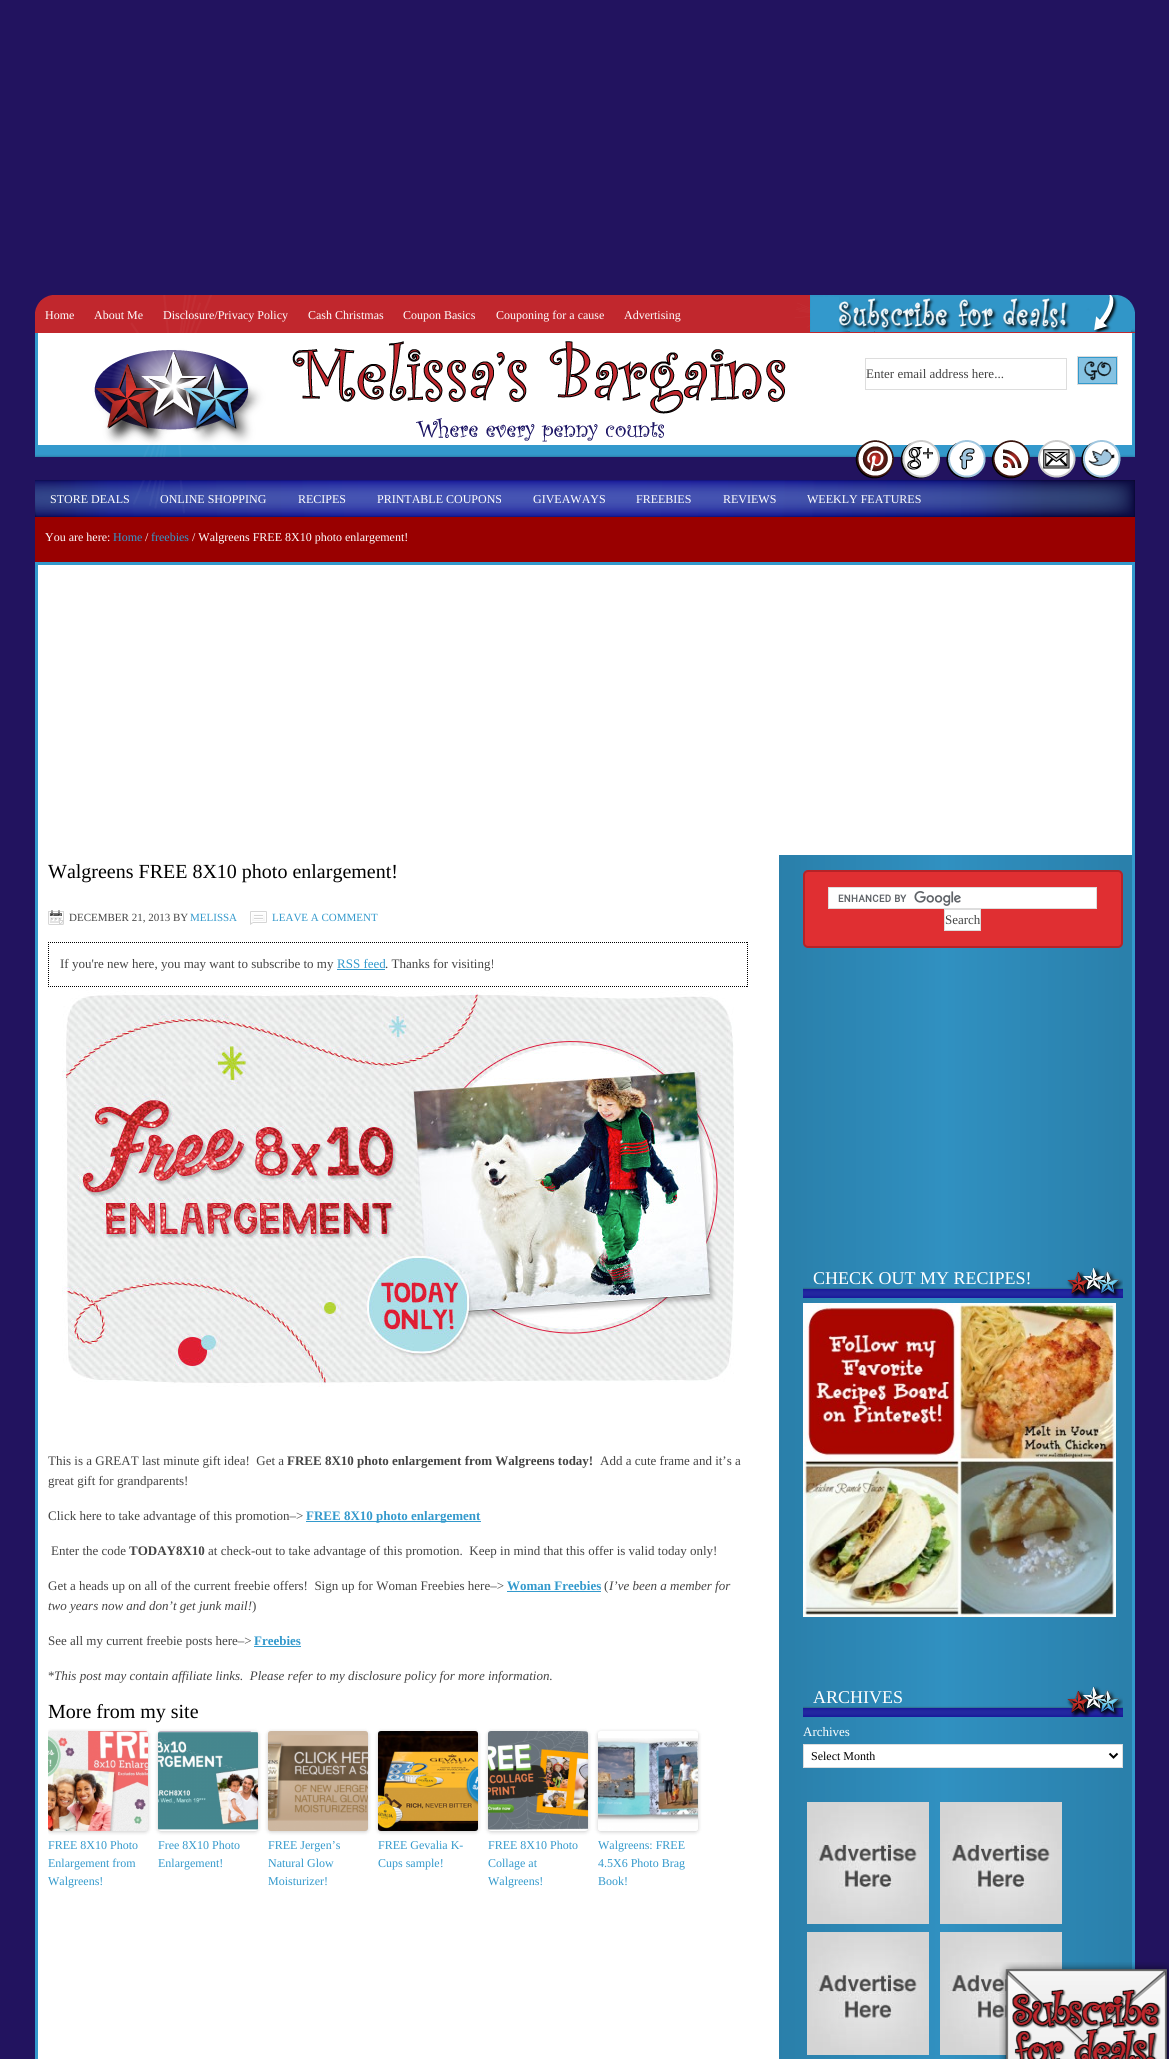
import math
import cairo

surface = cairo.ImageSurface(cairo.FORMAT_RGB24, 1169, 2059)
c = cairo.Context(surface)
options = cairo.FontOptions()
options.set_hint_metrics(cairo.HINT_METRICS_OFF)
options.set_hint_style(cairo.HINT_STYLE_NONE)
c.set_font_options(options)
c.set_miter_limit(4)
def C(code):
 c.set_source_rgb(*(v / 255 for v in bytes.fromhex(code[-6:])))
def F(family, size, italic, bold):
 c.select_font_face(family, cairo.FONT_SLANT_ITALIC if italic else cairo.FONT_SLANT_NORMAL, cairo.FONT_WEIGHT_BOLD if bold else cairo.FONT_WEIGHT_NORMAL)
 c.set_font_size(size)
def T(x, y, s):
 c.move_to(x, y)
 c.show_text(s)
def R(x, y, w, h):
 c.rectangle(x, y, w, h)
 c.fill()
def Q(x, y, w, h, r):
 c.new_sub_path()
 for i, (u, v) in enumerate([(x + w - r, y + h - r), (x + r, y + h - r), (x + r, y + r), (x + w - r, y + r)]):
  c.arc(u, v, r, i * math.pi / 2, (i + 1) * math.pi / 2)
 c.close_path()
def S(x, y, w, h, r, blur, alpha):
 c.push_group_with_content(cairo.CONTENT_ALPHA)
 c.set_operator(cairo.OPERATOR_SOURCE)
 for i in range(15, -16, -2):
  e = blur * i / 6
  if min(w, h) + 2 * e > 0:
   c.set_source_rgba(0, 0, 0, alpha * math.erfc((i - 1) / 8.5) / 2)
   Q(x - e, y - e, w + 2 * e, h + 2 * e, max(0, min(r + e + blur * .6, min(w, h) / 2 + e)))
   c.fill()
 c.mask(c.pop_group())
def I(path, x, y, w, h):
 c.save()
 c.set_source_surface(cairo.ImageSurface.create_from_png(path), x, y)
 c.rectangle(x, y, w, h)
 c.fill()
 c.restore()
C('22135f')
c.paint()
I('1.png',35,295,1100,37)
F('Liberation Serif',12,0,0)
C('ffffff')
T(45,319,'Home')
T(94,319,'About Me')
T(163,319,'Disclosure/Privacy Policy')
T(308,319,'Cash Christmas')
T(403,319,'Coupon Basics')
T(496,319,'Couponing for a cause')
T(624,319,'Advertising')
I('2.png',35,332,1100,125)
c.rectangle(865.5,358.5,201,31)
C('dddddd')
c.set_line_width(1)
c.stroke()
F('Liberation Serif',13,0,0)
C('444444')
T(866,378,'Enter email address here...')
c.rectangle(1077.5,356.5,40,28)
C('dddddd')
c.stroke()
I('3.png',1078,357,39,27)
I('4.png',855,440,266,39)
I('5.png',35,480,1100,37)
F('Liberation Serif',12,0,0)
C('ffffff')
T(50,503,'STORE DEALS')
T(160,503,'ONLINE SHOPPING')
T(298,503,'RECIPES')
T(377,503,'PRINTABLE COUPONS')
T(533,503,'GIVEAWAYS')
T(636,503,'FREEBIES')
T(723,503,'REVIEWS')
T(807,503,'WEEKLY FEATURES')
C('990000')
R(35,517,1100,45)
C('ffffff')
T(45,541,'You are here:')
C('3399cc')
T(113,541,'Home')
C('ffffff')
T(145,541,'/')
C('3399cc')
T(151,541,'freebies')
C('ffffff')
T(192,541,'/ Walgreens FREE 8X10 photo enlargement!')
c.rectangle(36.5,563.5,1097,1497)
c.fill_preserve()
C('3399cc')
c.set_line_width(3)
c.stroke()
I('6.png',779,855,353,1204)
F('Liberation Serif',20,0,0)
C('000000')
T(48,878,'Walgreens FREE 8X10 photo enlargement!')
I('7.png',48,910,16,15)
F('Liberation Serif',11,0,0)
C('444444')
T(69,921,'DECEMBER 21, 2013 BY')
C('3399cc')
T(190,921,'MELISSA')
I('8.png',250,911,17,14)
T(272,921,'LEAVE A COMMENT')
c.new_path()
c.move_to(48,942.5)
c.line_to(748,942.5)
C('000000')
c.set_line_width(1)
c.set_dash([1,1])
c.stroke()
c.new_path()
c.move_to(747.5,942)
c.line_to(747.5,987)
c.stroke()
c.new_path()
c.move_to(48,986.5)
c.line_to(748,986.5)
c.stroke()
c.new_path()
c.move_to(48.5,942)
c.line_to(48.5,987)
c.stroke()
F('Liberation Serif',13,0,0)
C('444444')
T(60,968,'If you\'re new here, you may want to subscribe to my')
C('3399cc')
T(337,968,'RSS feed')
R(337,969,48,1)
C('444444')
T(385,968,'. Thanks for visiting!')
I('9.png',62,990,672,397)
c.save()
c.rectangle(48,860,700,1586)
c.clip()
T(48,1465,'This is a GREAT last minute gift idea!  Get a')
c.restore()
F('Liberation Serif',13,0,1)
T(287,1465,'FREE 8X10 photo enlargement from Walgreens today!')
F('Liberation Serif',13,0,0)
T(600,1465,'Add a cute frame and it’s a')
T(48,1485,'great gift for grandparents!')
T(48,1520,'Click here to take advantage of this promotion–>')
C('3399cc')
R(306,1521,175,1)
F('Liberation Serif',13,0,1)
T(306,1520,'FREE 8X10 photo enlargement')
F('Liberation Serif',13,0,0)
C('444444')
T(51,1555,'Enter the code')
F('Liberation Serif',13,0,1)
T(129,1555,'TODAY8X10')
F('Liberation Serif',13,0,0)
T(208,1555,'at check-out to take advantage of this promotion.  Keep in mind that this offer is valid today only!')
T(48,1590,'Get a heads up on all of the current freebie offers!  Sign up for Woman Freebies here–>')
F('Liberation Serif',13,0,1)
C('3399cc')
T(507,1590,'Woman Freebies')
R(507,1591,94,1)
F('Liberation Serif',13,0,0)
C('444444')
T(604,1590,'(')
F('Liberation Serif',13,1,0)
T(609,1590,'I’ve been a member for')
T(48,1610,'two years now and don’t get junk mail!')
F('Liberation Serif',13,0,0)
T(252,1610,')')
T(48,1645,'See all my current freebie posts here–>')
F('Liberation Serif',13,0,1)
C('3399cc')
T(254,1645,'Freebies')
R(254,1646,47,1)
F('Liberation Serif',13,0,0)
C('444444')
T(48,1680,'*')
F('Liberation Serif',13,1,0)
T(54,1680,'This post may contain affiliate links.  Please refer to my disclosure policy for more information.')
F('Liberation Serif',20,0,0)
C('000000')
T(48,1718,'More from my site')
c.save()
c.rectangle(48,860,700,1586)
c.clip()
C('000000')
S(48,1732,100,100,3,2,.2)
c.restore()
I('10.png',48,1731,100,100)
F('Liberation Serif',12,0,0)
C('3399cc')
T(48,1849,'FREE 8X10 Photo')
T(48,1867,'Enlargement from')
T(48,1885,'Walgreens!')
C('000000')
S(158,1732,100,100,3,2,.2)
I('11.png',158,1731,100,100)
C('3399cc')
T(158,1849,'Free 8X10 Photo')
T(158,1867,'Enlargement!')
C('000000')
S(268,1732,100,100,3,2,.2)
I('12.png',268,1731,100,100)
C('3399cc')
T(268,1849,'FREE Jergen’s')
T(268,1867,'Natural Glow')
T(268,1885,'Moisturizer!')
C('000000')
S(378,1732,100,100,3,2,.2)
I('13.png',378,1731,100,100)
C('3399cc')
T(378,1849,'FREE Gevalia K-')
T(378,1867,'Cups sample!')
C('000000')
S(488,1732,100,100,3,2,.2)
I('14.png',488,1731,100,100)
C('3399cc')
T(488,1849,'FREE 8X10 Photo')
T(488,1867,'Collage at')
T(488,1885,'Walgreens!')
c.save()
c.set_fill_rule(cairo.FILL_RULE_EVEN_ODD)
c.new_path()
c.move_to(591,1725)
c.line_to(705,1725)
c.line_to(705,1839)
c.line_to(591,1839)
c.close_path()
c.move_to(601,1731)
c.line_to(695,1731)
c.curve_to(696.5,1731,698,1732.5,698,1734)
c.line_to(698,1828)
c.curve_to(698,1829.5,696.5,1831,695,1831)
c.line_to(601,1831)
c.curve_to(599.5,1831,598,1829.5,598,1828)
c.line_to(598,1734)
c.curve_to(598,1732.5,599.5,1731,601,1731)
c.close_path()
c.clip()
C('000000')
S(598,1732,100,100,3,2,.2)
c.restore()
I('15.png',598,1738,100,93)
T(598,1849,'Walgreens: FREE')
T(598,1867,'4.5X6 Photo Brag')
T(598,1885,'Book!')
C('e02f32')
Q(804,871,318,76,4)
c.fill_preserve()
C('b62327')
c.set_line_width(2)
c.set_dash([])
c.stroke()
C('ffffff')
R(829,888,267,20)
I('16.png',838,891,123,15)
c.rectangle(828.5,887.5,268,21)
C('dddddd')
c.set_line_width(1)
c.stroke()
C('ffffff')
c.rectangle(944.5,909.5,36,21)
c.fill_preserve()
C('dddddd')
c.stroke()
F('Liberation Serif',13,0,0)
C('444444')
T(945,924,'Search')
I('17.png',803,1267,320,31)
F('Liberation Serif',18,0,0)
C('ffffff')
T(813,1284,'CHECK OUT MY RECIPES!')
I('18.png',803,1303,313,314)
I('17.png',803,1686,320,31)
T(813,1703,'ARCHIVES')
F('Liberation Serif',13,0,0)
T(803,1736,'Archives')
c.rectangle(803.5,1744.5,319,23)
c.fill_preserve()
C('dddddd')
c.stroke()
c.new_path()
c.move_to(1109.5,1753.5)
c.line_to(1113.5,1757.5)
c.line_to(1117.5,1753.5)
C('000000')
c.set_line_width(2)
c.stroke()
F('Liberation Serif',12,0,0)
T(811,1760,'Select Month')
I('19.png',807,1802,122,122)
I('20.png',940,1802,122,122)
I('21.png',807,1932,122,123)
I('22.png',940,1932,122,123)
I('23.png',999,1962,170,97)
surface.write_to_png('o.png')
